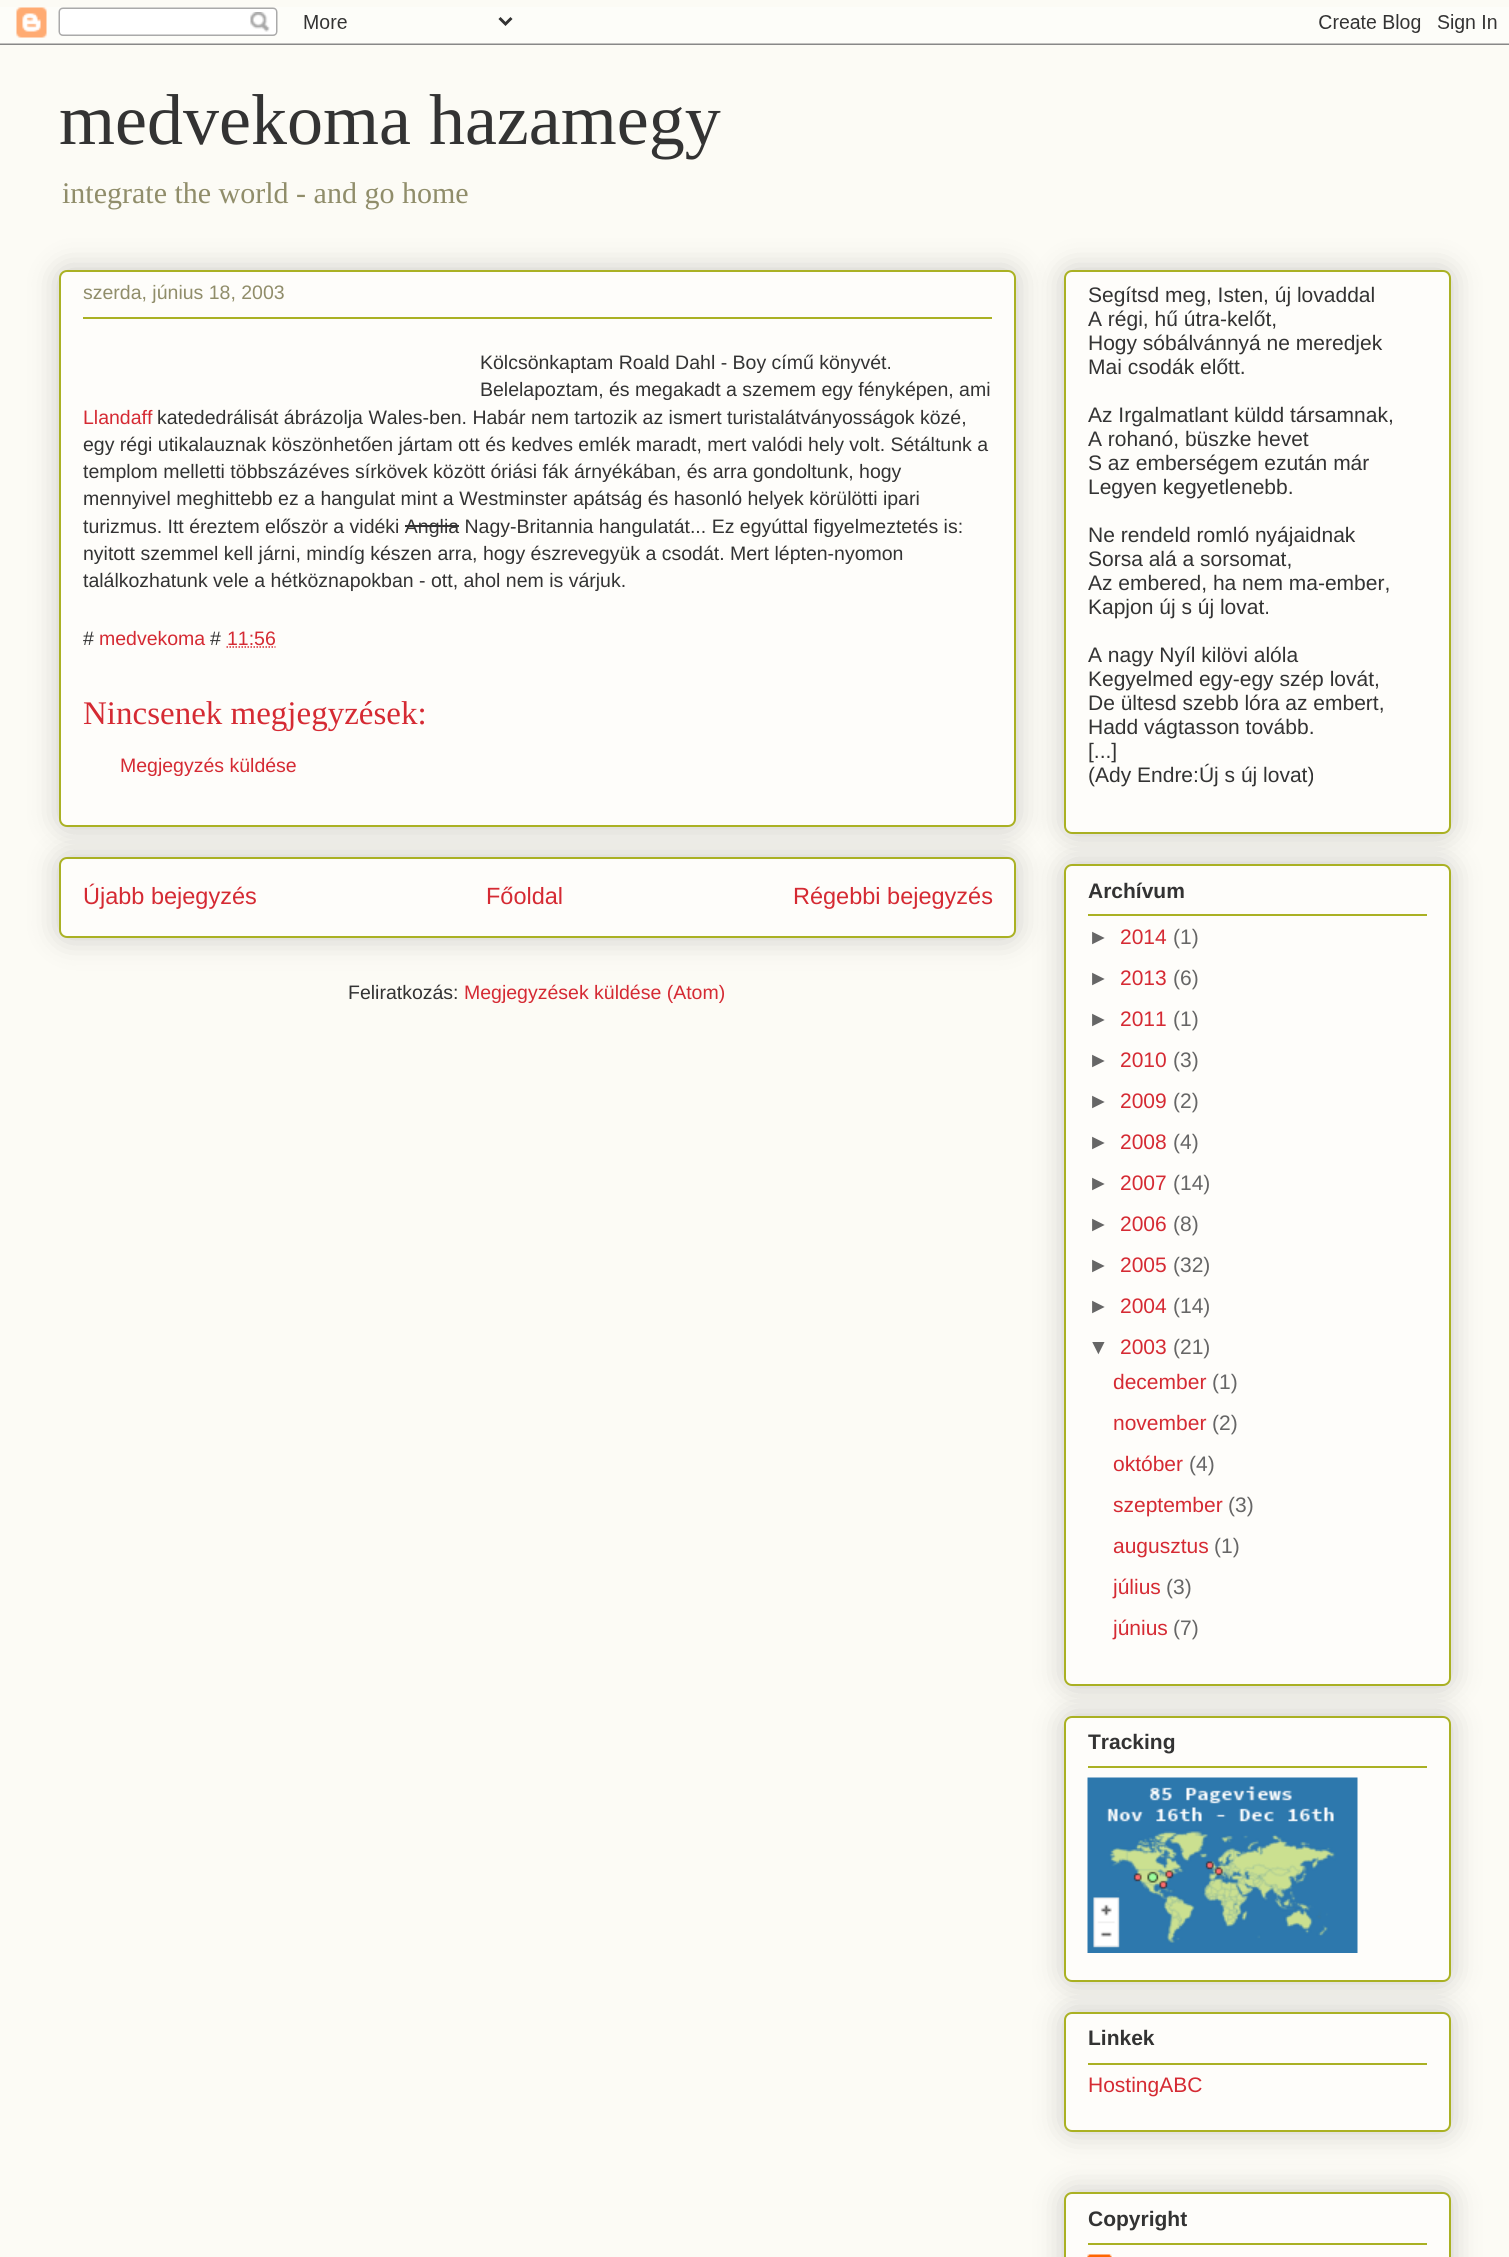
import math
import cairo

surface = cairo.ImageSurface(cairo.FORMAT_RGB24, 1509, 2257)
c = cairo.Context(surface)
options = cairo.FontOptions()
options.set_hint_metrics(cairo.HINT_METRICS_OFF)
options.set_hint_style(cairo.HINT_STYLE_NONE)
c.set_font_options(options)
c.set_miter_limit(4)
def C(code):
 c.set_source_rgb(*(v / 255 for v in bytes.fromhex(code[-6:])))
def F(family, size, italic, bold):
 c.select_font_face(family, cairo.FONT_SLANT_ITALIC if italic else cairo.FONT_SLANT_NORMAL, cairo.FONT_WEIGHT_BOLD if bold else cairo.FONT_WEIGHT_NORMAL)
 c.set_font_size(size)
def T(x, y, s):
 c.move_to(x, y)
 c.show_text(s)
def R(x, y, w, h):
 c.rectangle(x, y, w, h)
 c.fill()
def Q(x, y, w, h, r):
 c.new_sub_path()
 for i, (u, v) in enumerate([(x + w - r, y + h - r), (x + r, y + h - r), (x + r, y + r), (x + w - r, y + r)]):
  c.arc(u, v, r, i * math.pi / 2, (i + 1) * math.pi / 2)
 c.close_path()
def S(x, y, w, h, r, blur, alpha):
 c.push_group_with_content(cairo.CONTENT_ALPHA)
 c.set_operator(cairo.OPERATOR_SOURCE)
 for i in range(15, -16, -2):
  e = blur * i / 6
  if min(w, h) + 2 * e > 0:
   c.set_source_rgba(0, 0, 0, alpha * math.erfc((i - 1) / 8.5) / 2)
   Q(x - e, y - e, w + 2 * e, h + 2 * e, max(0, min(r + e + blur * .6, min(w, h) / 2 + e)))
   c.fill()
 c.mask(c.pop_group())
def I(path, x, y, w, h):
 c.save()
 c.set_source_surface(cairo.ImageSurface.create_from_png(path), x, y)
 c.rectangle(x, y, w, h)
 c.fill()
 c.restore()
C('fcfbf5')
c.paint()
I('1.png',0,7,1509,38)
F('Liberation Serif',72,0,0)
C('333333')
T(59,144,'medvekoma hazamegy')
F('Liberation Serif',30,0,0)
C('908d6a')
T(62,203,'integrate the world - and go home')
C('000000')
S(59,857,957,81,8,15,.2)
C('fefdfa')
Q(60,858,955,79,7)
c.fill_preserve()
C('aab123')
c.stroke()
C('000000')
S(59,270,957,557,8,15,.2)
C('fefdfa')
Q(60,271,955,555,7)
c.fill_preserve()
C('aab123')
c.stroke()
F('Liberation Sans',19.5,0,0)
C('908d6a')
T(83,299,'szerda, június 18, 2003')
C('aab123')
R(83,317,909,2)
C('333333')
T(480,369,'Kölcsönkaptam Roald Dahl - Boy című könyvét.')
T(480,396,'Belelapoztam, és megakadt a szemem egy fényképen, ami')
C('d52a33')
T(83,424,'Llandaff')
C('333333')
T(157,424,'katededrálisát ábrázolja Wales-ben. Habár nem tartozik az ismert turistalátványosságok közé,')
T(83,451,'egy régi utikalauznak köszönhetően jártam ott és kedves emlék maradt, mert valódi hely volt. Sétáltunk a')
T(83,478,'templom melletti többszázéves sírkövek között óriási fák árnyékában, és arra gondoltunk, hogy')
T(83,505,'mennyivel meghittebb ez a hangulat mint a Westminster apátság és hasonló helyek körülötti ipari')
T(83,533,'turizmus. Itt éreztem először a vidéki Anglia Nagy-Britannia hangulatát... Ez egyúttal figyelmeztetés is:')
R(405,525,54,2)
T(83,560,'nyitott szemmel kell járni, mindíg készen arra, hogy észrevegyük a csodát. Mert lépten-nyomon')
T(83,587,'találkozhatunk vele a hétköznapokban - ott, ahol nem is várjuk.')
T(83,645,'#')
C('d52a33')
T(99,645,'medvekoma')
C('333333')
T(210,645,'#')
C('d52a33')
T(227,645,'11:56')
c.new_path()
c.move_to(226.5,647)
c.line_to(275.5,647)
c.set_line_width(1.5)
c.set_dash([1.5,1.5])
c.stroke()
F('Liberation Serif',33,0,0)
T(83,724,'Nincsenek megjegyzések:')
F('Liberation Sans',19.5,0,0)
T(120,772,'Megjegyzés küldése')
F('Liberation Sans',23.5,0,0)
T(83,904,'Újabb bejegyzés')
T(486,904,'Főoldal')
T(793,904,'Régebbi bejegyzés')
F('Liberation Sans',19.5,0,0)
C('333333')
T(348,999,'Feliratkozás:')
C('d52a33')
T(464,999,'Megjegyzések küldése (Atom)')
C('000000')
S(1064,270,387,564,8,15,.2)
C('fefdfa')
Q(1065,271,385,562,7)
c.fill_preserve()
C('aab123')
c.set_line_width(2)
c.set_dash([])
c.stroke()
F('Liberation Sans',21,0,0)
C('333333')
T(1088,302,'Segítsd meg, Isten, új lovaddal')
T(1088,326,'A régi, hű útra-kelőt,')
T(1088,350,'Hogy sóbálvánnyá ne meredjek')
T(1088,374,'Mai csodák előtt.')
T(1088,422,'Az Irgalmatlant küldd társamnak,')
T(1088,446,'A rohanó, büszke hevet')
T(1088,470,'S az emberségem ezután már')
T(1088,494,'Legyen kegyetlenebb.')
T(1088,542,'Ne rendeld romló nyájaidnak')
T(1088,566,'Sorsa alá a sorsomat,')
T(1088,590,'Az embered, ha nem ma-ember,')
T(1088,614,'Kapjon új s új lovat.')
T(1088,662,'A nagy Nyíl kilövi alóla')
T(1088,686,'Kegyelmed egy-egy szép lovát,')
T(1088,710,'De ültesd szebb lóra az embert,')
T(1088,734,'Hadd vágtasson tovább.')
T(1088,758,'[...]')
T(1088,782,'(Ady Endre:Új s új lovat)')
C('000000')
S(1064,864,387,822,8,15,.2)
C('fefdfa')
Q(1065,865,385,820,7)
c.fill_preserve()
C('aab123')
c.stroke()
F('Liberation Sans',21,0,1)
C('333333')
T(1088,898,'Archívum')
C('aab123')
R(1088,914,339,2)
F('Liberation Sans',21,0,0)
C('666666')
T(1088,944,'►')
C('d52a33')
T(1120,944,'2014')
C('666666')
T(1173,944,'(1)')
T(1088,985,'►')
C('d52a33')
T(1120,985,'2013')
C('666666')
T(1173,985,'(6)')
T(1088,1026,'►')
C('d52a33')
T(1120,1026,'2011')
C('666666')
T(1173,1026,'(1)')
T(1088,1067,'►')
C('d52a33')
T(1120,1067,'2010')
C('666666')
T(1173,1067,'(3)')
T(1088,1108,'►')
C('d52a33')
T(1120,1108,'2009')
C('666666')
T(1173,1108,'(2)')
T(1088,1149,'►')
C('d52a33')
T(1120,1149,'2008')
C('666666')
T(1173,1149,'(4)')
T(1088,1190,'►')
C('d52a33')
T(1120,1190,'2007')
C('666666')
T(1173,1190,'(14)')
T(1088,1231,'►')
C('d52a33')
T(1120,1231,'2006')
C('666666')
T(1173,1231,'(8)')
T(1088,1272,'►')
C('d52a33')
T(1120,1272,'2005')
C('666666')
T(1173,1272,'(32)')
T(1088,1313,'►')
C('d52a33')
T(1120,1313,'2004')
C('666666')
T(1173,1313,'(14)')
T(1088,1354,'▼')
C('d52a33')
T(1120,1354,'2003')
C('666666')
T(1173,1354,'(21)')
C('d52a33')
T(1113,1389,'december')
C('666666')
T(1212,1389,'(1)')
C('d52a33')
T(1113,1430,'november')
C('666666')
T(1212,1430,'(2)')
C('d52a33')
T(1113,1471,'október')
C('666666')
T(1189,1471,'(4)')
C('d52a33')
T(1113,1512,'szeptember')
C('666666')
T(1228,1512,'(3)')
C('d52a33')
T(1113,1553,'augusztus')
C('666666')
T(1214,1553,'(1)')
C('d52a33')
T(1113,1594,'július')
C('666666')
T(1166,1594,'(3)')
C('d52a33')
T(1113,1635,'június')
C('666666')
T(1173,1635,'(7)')
C('000000')
S(1064,1716,387,266,8,15,.2)
C('fefdfa')
Q(1065,1717,385,264,7)
c.fill_preserve()
C('aab123')
c.stroke()
F('Liberation Sans',21,0,1)
C('333333')
T(1088,1749,'Tracking')
C('aab123')
R(1088,1766,339,2)
I('2.png',1087,1777,271,176)
C('000000')
S(1064,2012,387,120,8,15,.2)
C('fefdfa')
Q(1065,2013,385,118,7)
c.fill_preserve()
C('aab123')
c.stroke()
C('333333')
T(1088,2045,'Linkek')
C('aab123')
R(1088,2063,339,2)
F('Liberation Sans',21,0,0)
C('d52a33')
T(1088,2092,'HostingABC')
C('000000')
S(1064,2192,387,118,8,15,.2)
C('fefdfa')
Q(1065,2193,385,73,7)
c.fill_preserve()
C('aab123')
c.stroke()
F('Liberation Sans',21,0,1)
C('333333')
T(1088,2226,'Copyright')
C('aab123')
R(1088,2243,339,2)
I('3.png',1087,2254,25,3)
surface.write_to_png('o.png')
